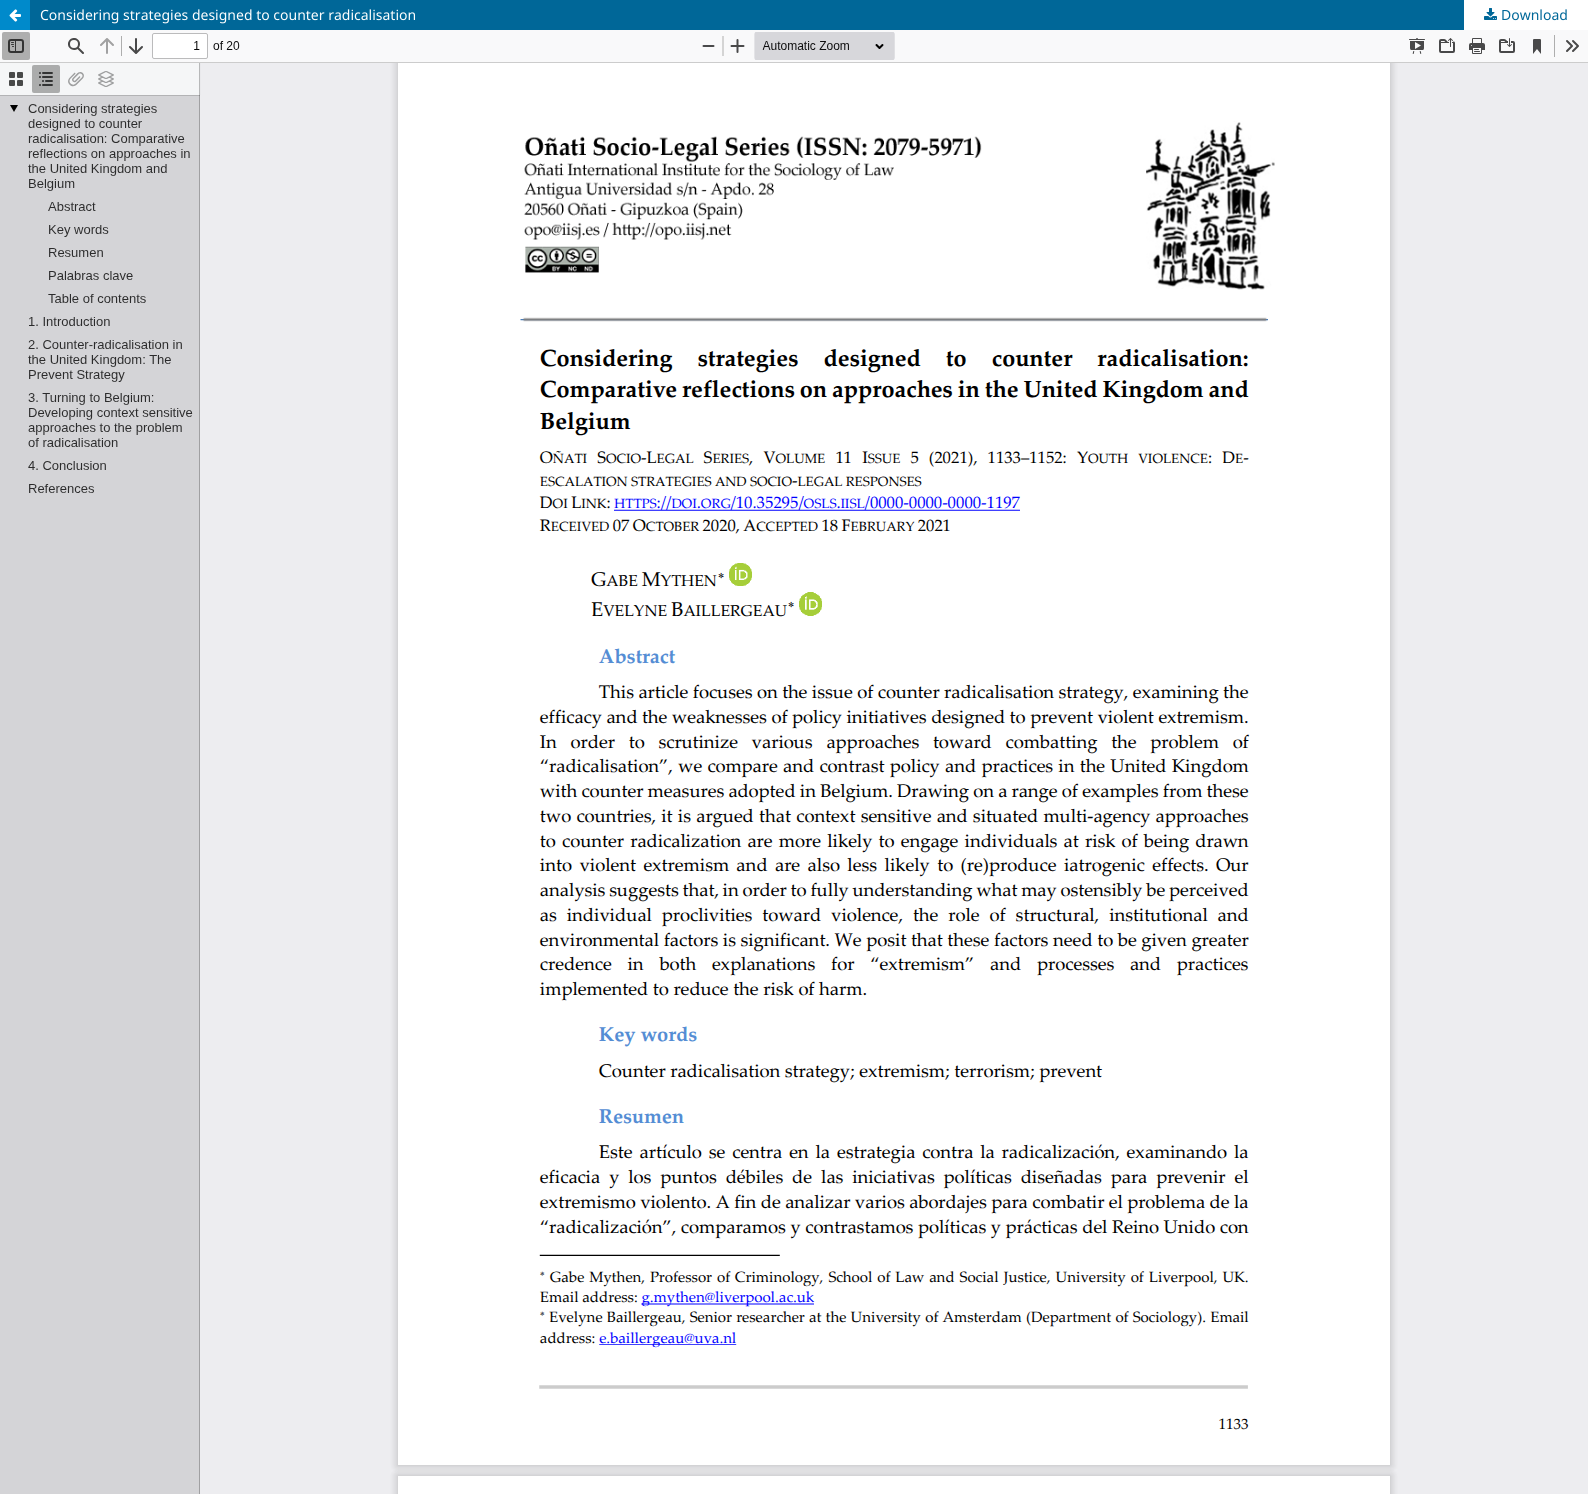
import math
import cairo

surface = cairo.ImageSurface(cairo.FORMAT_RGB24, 1588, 1494)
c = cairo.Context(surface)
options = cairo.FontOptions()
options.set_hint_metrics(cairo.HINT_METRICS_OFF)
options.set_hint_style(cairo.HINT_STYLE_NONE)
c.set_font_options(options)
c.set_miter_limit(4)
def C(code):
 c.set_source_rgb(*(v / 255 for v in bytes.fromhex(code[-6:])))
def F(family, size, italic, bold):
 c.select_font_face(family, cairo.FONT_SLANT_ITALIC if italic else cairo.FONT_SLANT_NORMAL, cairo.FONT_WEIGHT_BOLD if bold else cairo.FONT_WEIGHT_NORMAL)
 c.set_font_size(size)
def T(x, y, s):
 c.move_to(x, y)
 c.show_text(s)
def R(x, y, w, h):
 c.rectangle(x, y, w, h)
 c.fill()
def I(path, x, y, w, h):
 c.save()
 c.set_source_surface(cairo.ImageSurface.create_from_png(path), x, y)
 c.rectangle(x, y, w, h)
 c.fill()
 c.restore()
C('ffffff')
c.paint()
C('006798')
R(30,0,1434,30)
C('008acb')
R(0,0,30,30)
I('1.png',9,9,12,13)
F('Noto Sans',14,0,0)
C('ffffff')
T(40,20,'Considering strategies designed to counter radicalisation')
I('2.png',1484,8,13,12)
C('006798')
T(1501,20,'Download')
I('3.png',0,30,1588,1464)
surface.write_to_png('o.png')
